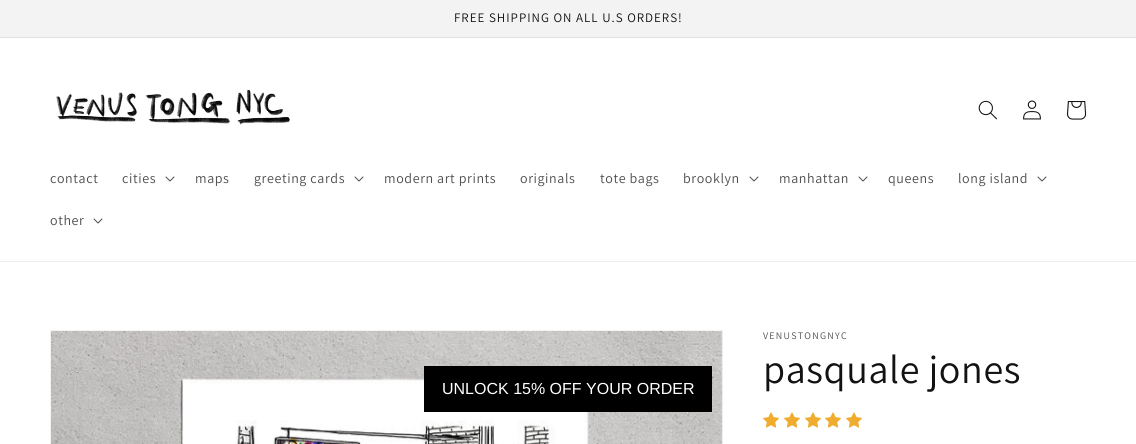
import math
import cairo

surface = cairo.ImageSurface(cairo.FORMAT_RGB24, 1136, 444)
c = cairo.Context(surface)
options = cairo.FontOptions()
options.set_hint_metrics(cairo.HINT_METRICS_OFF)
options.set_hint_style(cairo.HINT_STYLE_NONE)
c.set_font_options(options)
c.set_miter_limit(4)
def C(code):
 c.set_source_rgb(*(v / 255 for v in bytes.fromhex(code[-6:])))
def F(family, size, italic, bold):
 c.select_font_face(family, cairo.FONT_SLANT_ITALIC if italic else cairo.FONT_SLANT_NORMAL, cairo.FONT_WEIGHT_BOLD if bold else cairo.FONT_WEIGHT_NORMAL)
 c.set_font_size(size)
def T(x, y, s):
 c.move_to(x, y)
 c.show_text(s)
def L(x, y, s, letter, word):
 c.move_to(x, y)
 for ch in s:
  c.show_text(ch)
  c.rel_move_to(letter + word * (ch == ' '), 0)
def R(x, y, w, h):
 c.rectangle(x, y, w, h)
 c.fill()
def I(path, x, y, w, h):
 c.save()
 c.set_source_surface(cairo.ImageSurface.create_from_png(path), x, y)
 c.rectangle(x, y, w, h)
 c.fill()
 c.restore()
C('ffffff')
c.paint()
C('f3f3f3')
R(0,0,1136,37)
C('e1e1e1')
R(0,37,1136,1)
F('Assistant',13,0,0)
C('121212')
L(454,22,'FREE SHIPPING ON ALL U.S ORDERS!',1,0)
C('ececec')
R(0,261,1136,1)
I('1.png',56,89,234,36)
I('2.png',978,100,19,20)
I('3.png',1023,100,18,20)
I('4.png',1067,101,20,19)
F('Assistant',14,0,0)
C('4d4d4d')
L(50,183,'contact',.6,0)
L(122,183,'cities',.6,0)
I('5.png',165,176,10,6)
L(195,183,'maps',.6,0)
L(254,183,'greeting cards',.6,0)
I('5.png',354,176,10,6)
L(384,183,'modern art prints',.6,0)
L(520,183,'originals',.6,0)
L(600,183,'tote bags',.6,0)
L(683,183,'brooklyn',.6,0)
I('5.png',749,176,10,6)
L(779,183,'manhattan',.6,0)
I('5.png',858,176,10,6)
L(888,183,'queens',.6,0)
L(958,183,'long island',.6,0)
I('5.png',1037,176,10,6)
L(50,225,'other',.6,0)
I('5.png',93,218,10,6)
c.rectangle(50.5,330.5,672,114)
C('f3f3f3')
c.set_line_width(1)
c.stroke()
I('6.png',51,331,672,113)
C('000000')
R(424,366,288,46)
F('Liberation Sans',16,0,0)
C('ffffff')
T(442,394,'UNLOCK 15% OFF YOUR ORDER')
F('Assistant',10,0,0)
C('4d4d4d')
L(763,339,'VENUSTONGNYC',1.25,0)
F('Assistant',40,0,0)
C('121212')
L(763,383,'pasquale jones',.6,0)
I('7.png',763,412,16,16)
I('7.png',784,412,16,16)
I('7.png',805,412,16,16)
I('7.png',825,412,16,16)
I('7.png',846,412,16,16)
surface.write_to_png('o.png')
